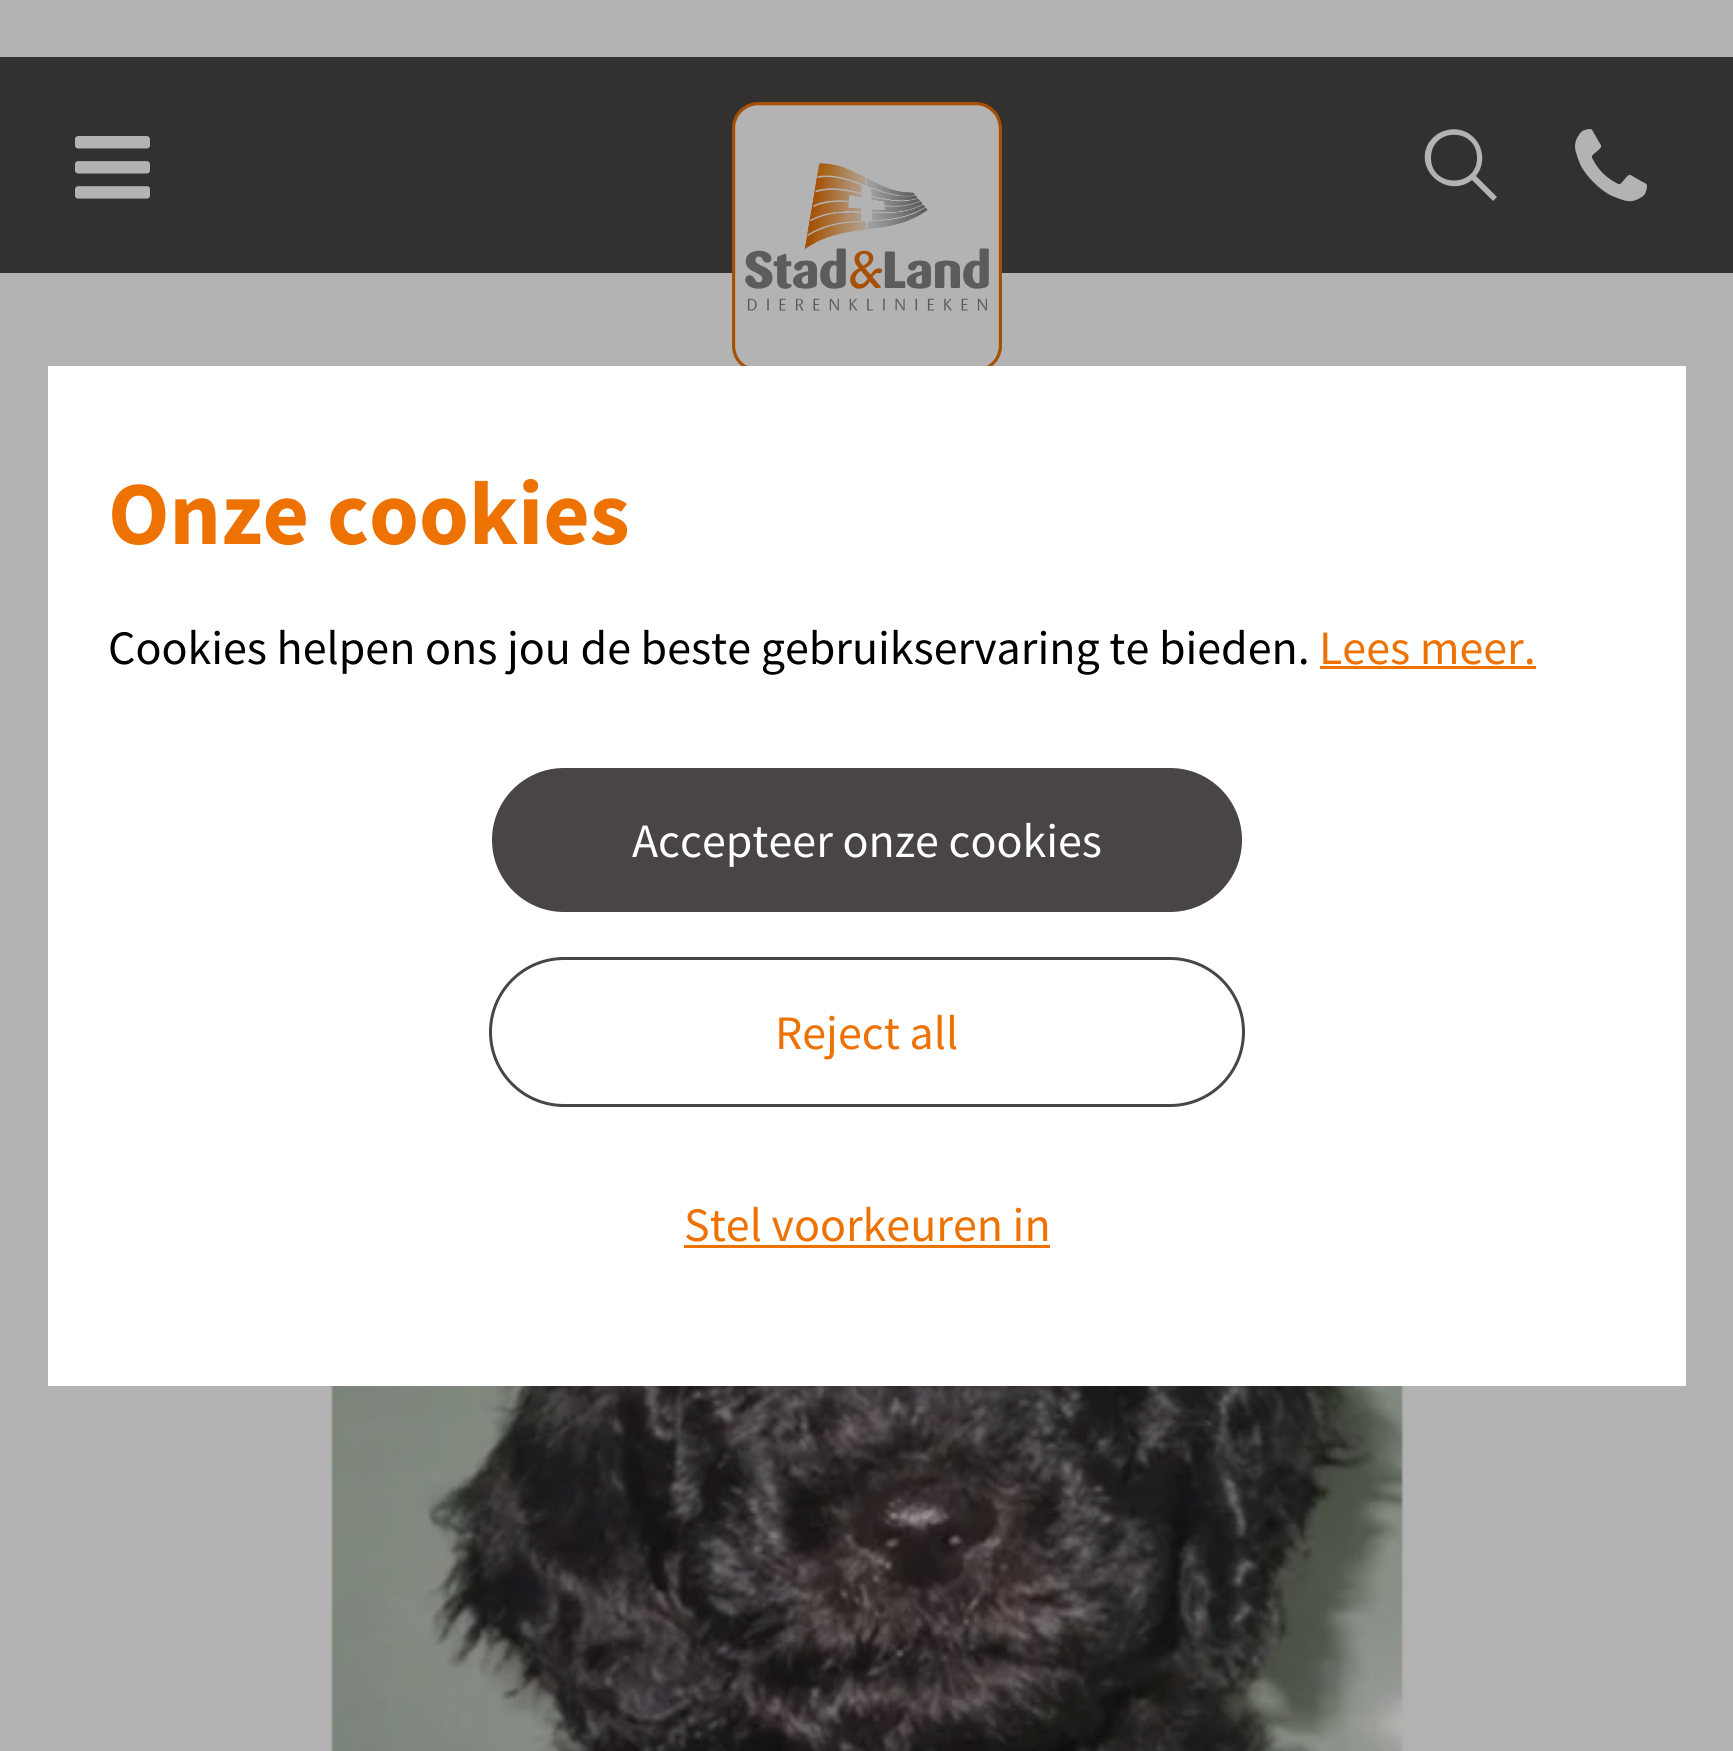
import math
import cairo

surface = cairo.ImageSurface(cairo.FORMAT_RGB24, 1733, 1751)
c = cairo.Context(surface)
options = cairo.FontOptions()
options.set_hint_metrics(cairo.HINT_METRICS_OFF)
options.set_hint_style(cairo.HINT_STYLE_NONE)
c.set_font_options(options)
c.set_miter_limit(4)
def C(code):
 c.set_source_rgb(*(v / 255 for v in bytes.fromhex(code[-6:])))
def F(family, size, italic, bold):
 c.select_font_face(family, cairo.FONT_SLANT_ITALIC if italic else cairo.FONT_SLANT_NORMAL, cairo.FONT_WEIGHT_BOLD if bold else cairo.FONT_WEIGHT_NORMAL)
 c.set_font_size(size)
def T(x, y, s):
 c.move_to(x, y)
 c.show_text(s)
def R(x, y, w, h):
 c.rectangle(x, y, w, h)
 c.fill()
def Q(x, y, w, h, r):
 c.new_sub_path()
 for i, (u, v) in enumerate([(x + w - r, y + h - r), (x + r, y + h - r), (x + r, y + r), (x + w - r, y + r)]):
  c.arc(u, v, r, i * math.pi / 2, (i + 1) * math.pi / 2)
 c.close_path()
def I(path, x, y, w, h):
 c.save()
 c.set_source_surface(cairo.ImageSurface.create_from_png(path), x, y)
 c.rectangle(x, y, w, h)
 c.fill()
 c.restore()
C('b3b3b3')
c.paint()
C('333030')
R(0,57,1733,216)
I('1.png',75,136,75,63)
I('2.png',732,102,270,264)
C('b3b3b3')
c.new_path()
c.move_to(1497,197)
c.line_to(1476,176)
c.curve_to(1487,162,1483,142,1468,133)
c.curve_to(1461,129,1452,128,1444,131)
c.curve_to(1437,133,1432,138,1428,144)
c.curve_to(1414,171,1448,199,1472,180)
c.line_to(1493,201)
c.close_path()
c.move_to(1431,158)
c.curve_to(1431,127,1477,127,1477,158)
c.curve_to(1477,188,1431,188,1431,158)
c.close_path()
c.fill()
I('3.png',1575,129,72,73)
I('4.png',329,1386,1079,365)
C('ffffff')
R(48,366,1638,1020)
F('Source Sans Pro',90,0,1)
C('ee7202')
T(108,544,'Onze cookies')
F('Source Sans Pro',48,0,0)
C('000000')
T(108,664,'Cookies helpen ons jou de beste gebruikservaring te bieden.')
C('ee7202')
T(1319,664,'Lees meer.')
R(1320,666,216,3)
C('494545')
Q(492,768,750,144,72)
c.fill()
C('ffffff')
T(632,857,'Accepteer onze cookies')
Q(490.5,958.5,753,147,73.5)
C('494545')
c.set_line_width(3)
c.stroke()
C('ee7202')
T(775,1049,'Reject all')
T(684,1241,'Stel voorkeuren in')
R(684,1245,366,3)
surface.write_to_png('o.png')
